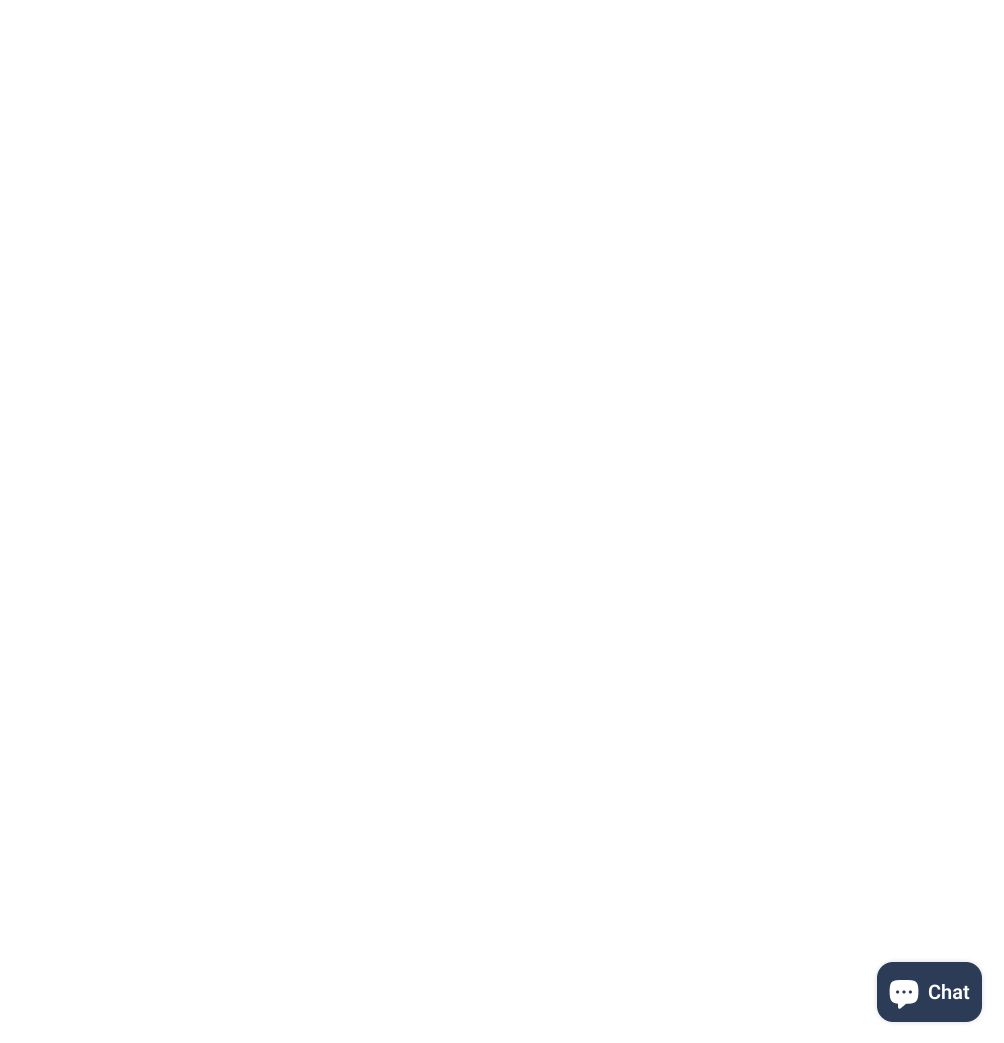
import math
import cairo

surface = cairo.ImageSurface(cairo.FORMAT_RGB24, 1004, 1043)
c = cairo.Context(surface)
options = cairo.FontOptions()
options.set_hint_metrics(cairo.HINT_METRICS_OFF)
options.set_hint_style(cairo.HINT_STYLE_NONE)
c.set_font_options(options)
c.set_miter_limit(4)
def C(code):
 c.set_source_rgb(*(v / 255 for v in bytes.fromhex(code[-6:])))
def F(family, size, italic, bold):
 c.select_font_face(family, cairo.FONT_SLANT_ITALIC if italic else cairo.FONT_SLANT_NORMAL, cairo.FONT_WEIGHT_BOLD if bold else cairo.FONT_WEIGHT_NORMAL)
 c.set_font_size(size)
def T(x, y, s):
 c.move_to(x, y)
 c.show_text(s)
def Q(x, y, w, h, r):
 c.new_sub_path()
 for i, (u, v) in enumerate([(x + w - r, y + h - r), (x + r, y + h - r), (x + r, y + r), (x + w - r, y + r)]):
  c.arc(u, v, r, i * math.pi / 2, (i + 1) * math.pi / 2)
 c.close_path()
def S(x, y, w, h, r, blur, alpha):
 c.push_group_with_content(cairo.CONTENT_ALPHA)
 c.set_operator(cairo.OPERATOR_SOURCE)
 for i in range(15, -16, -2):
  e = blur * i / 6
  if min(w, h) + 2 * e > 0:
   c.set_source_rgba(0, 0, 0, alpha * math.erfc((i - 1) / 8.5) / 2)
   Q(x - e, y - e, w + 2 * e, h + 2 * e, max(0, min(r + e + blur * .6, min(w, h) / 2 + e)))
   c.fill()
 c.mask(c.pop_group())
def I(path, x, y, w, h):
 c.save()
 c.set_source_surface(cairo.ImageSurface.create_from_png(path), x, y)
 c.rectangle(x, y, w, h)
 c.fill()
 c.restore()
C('ffffff')
c.paint()
C('000000')
S(877,962,105,60,16,2.5,.15)
C('2c3c57')
Q(877,962,105,60,16)
c.fill()
I('1.png',889,980,30,29)
F('Roboto SemiBold',20,0,0)
C('ffffff')
T(928,999,'Chat')
surface.write_to_png('o.png')
